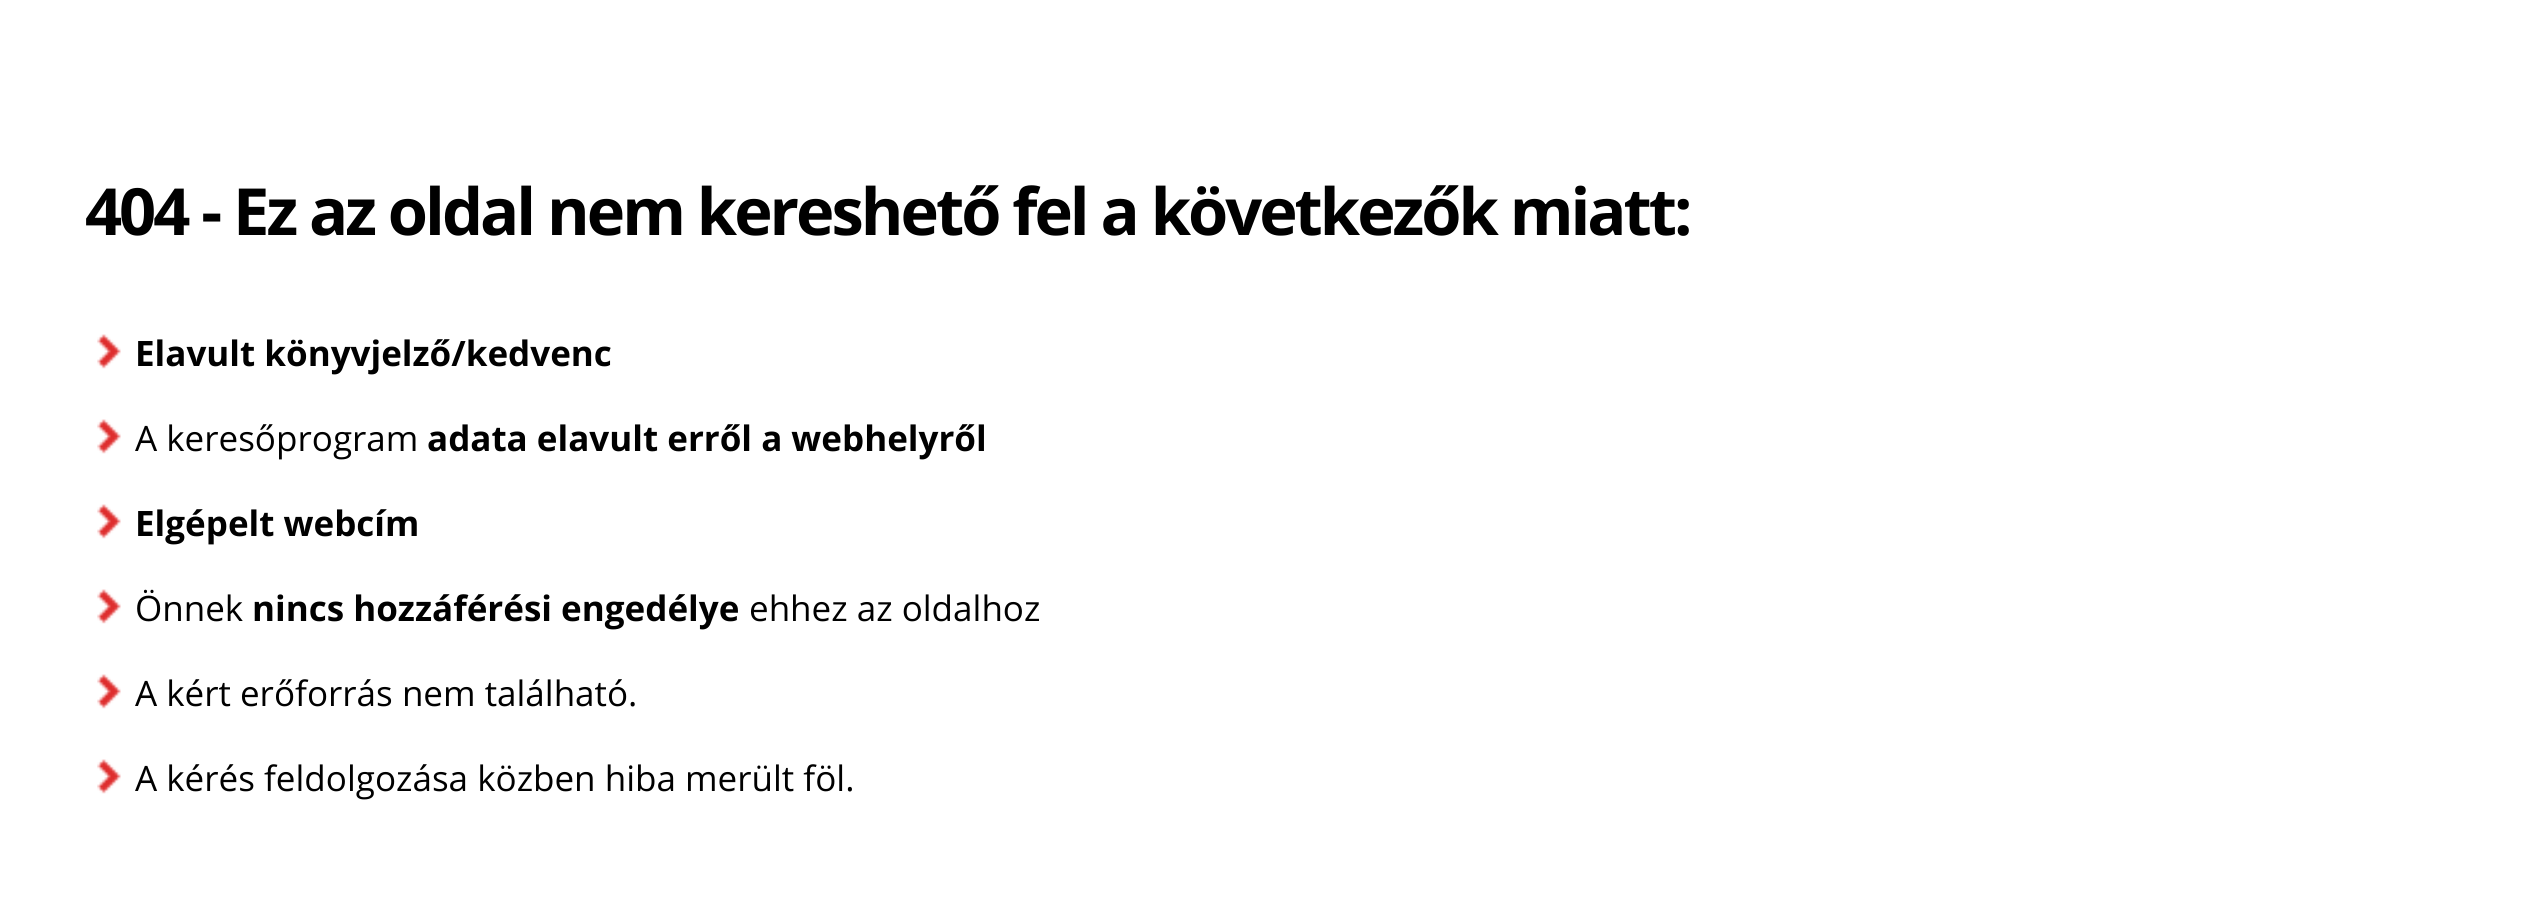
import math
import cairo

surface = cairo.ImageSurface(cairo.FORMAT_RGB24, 2543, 915)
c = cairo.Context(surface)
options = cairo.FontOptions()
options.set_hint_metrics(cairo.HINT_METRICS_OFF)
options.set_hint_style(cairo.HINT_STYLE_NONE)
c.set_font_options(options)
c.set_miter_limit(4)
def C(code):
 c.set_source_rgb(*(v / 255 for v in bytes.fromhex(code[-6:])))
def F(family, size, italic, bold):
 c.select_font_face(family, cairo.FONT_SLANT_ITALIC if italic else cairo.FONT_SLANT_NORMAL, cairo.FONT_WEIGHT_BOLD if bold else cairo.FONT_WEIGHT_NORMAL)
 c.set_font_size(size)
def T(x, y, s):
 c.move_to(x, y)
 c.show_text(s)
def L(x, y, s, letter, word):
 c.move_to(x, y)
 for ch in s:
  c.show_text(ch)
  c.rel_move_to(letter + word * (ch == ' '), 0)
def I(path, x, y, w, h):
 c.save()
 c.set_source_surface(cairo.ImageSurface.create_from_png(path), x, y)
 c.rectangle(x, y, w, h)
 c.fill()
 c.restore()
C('ffffff')
c.paint()
F('Open Sans',65,0,1)
C('000000')
L(85,235,'404 - Ez az oldal nem kereshető fel a következők miatt:',-3,0)
I('1.png',97,334,24,35)
F('Open Sans',35,0,1)
T(135,366,'Elavult könyvjelző/kedvenc')
I('1.png',97,419,24,35)
F('Open Sans',35,0,0)
T(135,451,'A keresőprogram')
F('Open Sans',35,0,1)
T(427,451,'adata elavult erről a webhelyről')
I('1.png',97,504,24,35)
T(135,536,'Elgépelt webcím')
I('2.png',97,589,24,35)
F('Open Sans',35,0,0)
T(135,621,'Önnek')
F('Open Sans',35,0,1)
T(252,621,'nincs hozzáférési engedélye')
F('Open Sans',35,0,0)
T(749,621,'ehhez az oldalhoz')
I('1.png',97,674,24,35)
T(135,706,'A kért erőforrás nem található.')
I('1.png',97,759,24,35)
T(135,791,'A kérés feldolgozása közben hiba merült föl.')
surface.write_to_png('o.png')
